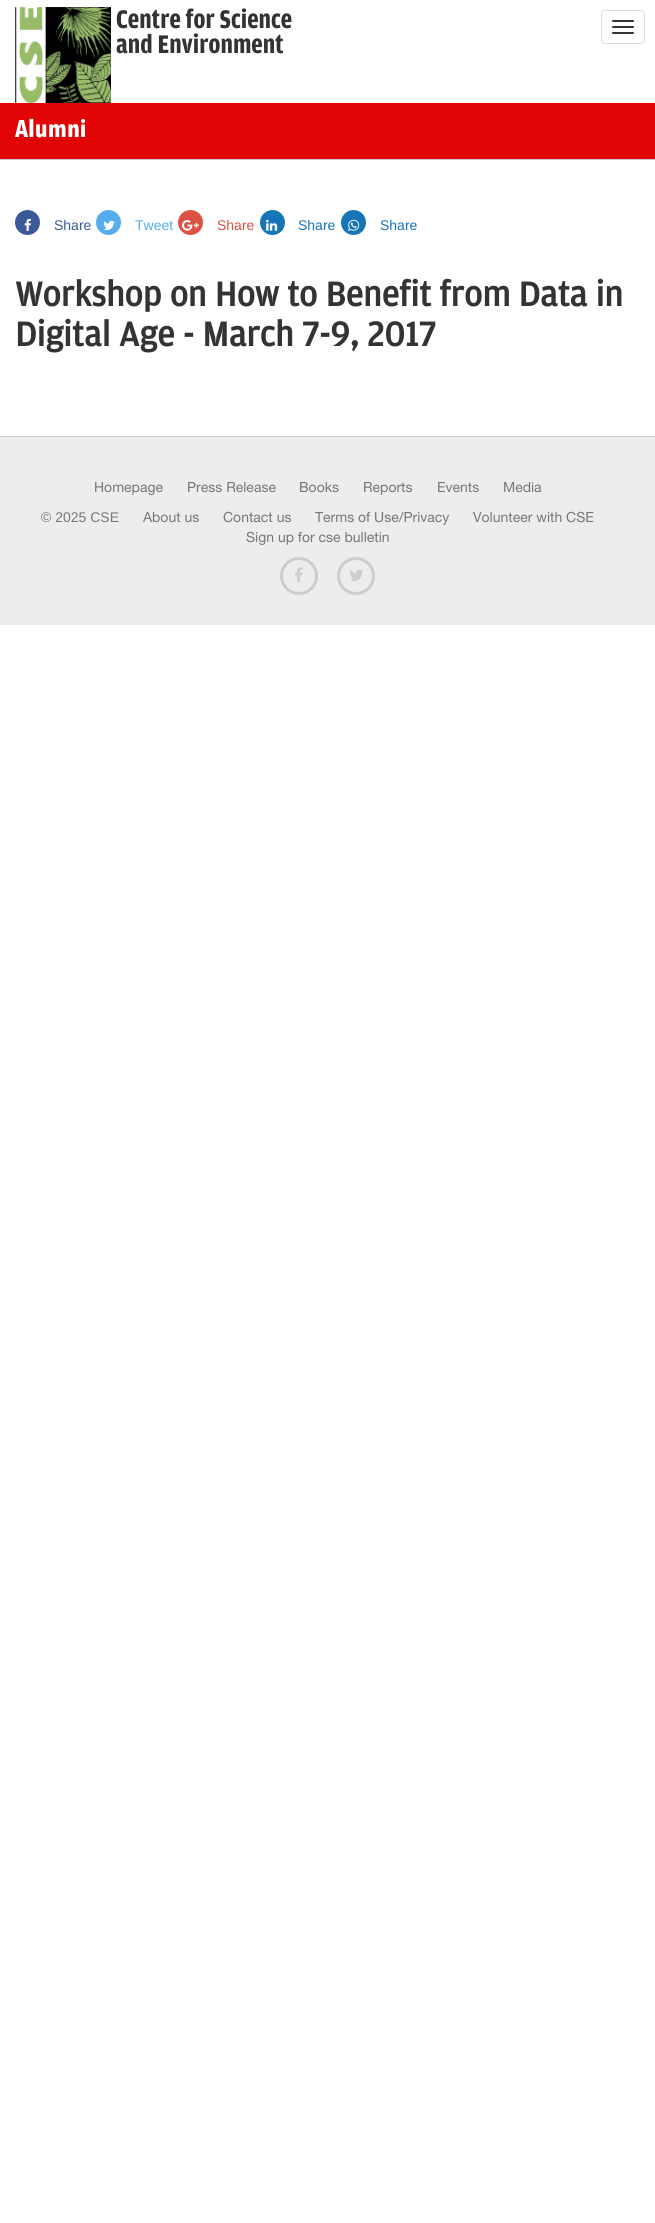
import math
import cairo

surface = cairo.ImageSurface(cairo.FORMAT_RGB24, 655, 2223)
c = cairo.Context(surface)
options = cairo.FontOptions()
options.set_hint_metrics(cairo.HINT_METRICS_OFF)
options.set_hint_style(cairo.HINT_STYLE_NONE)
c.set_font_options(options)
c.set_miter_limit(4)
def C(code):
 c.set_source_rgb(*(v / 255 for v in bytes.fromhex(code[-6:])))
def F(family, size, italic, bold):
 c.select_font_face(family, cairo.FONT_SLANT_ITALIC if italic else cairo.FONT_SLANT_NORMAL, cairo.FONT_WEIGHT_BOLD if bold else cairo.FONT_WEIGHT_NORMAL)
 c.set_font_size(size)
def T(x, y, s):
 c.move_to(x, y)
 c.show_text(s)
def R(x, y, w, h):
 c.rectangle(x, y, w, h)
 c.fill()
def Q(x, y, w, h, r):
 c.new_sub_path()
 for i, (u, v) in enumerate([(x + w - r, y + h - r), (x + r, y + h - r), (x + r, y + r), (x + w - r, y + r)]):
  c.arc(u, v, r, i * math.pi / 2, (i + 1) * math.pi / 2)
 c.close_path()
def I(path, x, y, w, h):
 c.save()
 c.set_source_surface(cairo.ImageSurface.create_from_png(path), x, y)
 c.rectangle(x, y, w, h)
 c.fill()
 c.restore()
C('ffffff')
c.paint()
I('1.png',15,7,96,96)
F('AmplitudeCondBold',27,0,1)
C('333333')
T(116,28,'Centre for Science')
T(116,53,'and Environment')
Q(601.5,10.5,43,33,3.5)
C('dddddd')
c.set_line_width(1)
c.stroke()
C('333333')
Q(612,20,22,2,1)
c.fill()
Q(612,26,22,2,1)
c.fill()
Q(612,32,22,2,1)
c.fill()
C('e00404')
R(0,103,655,56)
C('cbcbcb')
R(0,159,655,1)
F('Avenir Next',24,0,1)
C('ffffff')
T(15,137,'Alumni')
C('3b5998')
c.new_path()
c.arc(27.5,222.5,12.5,0,2 * math.pi)
c.fill()
I('2.png',24,218,7,13)
F('Liberation Sans',14,0,0)
T(54,230,'Share')
C('55acee')
c.new_path()
c.arc(108.5,222.5,12.5,0,2 * math.pi)
c.fill()
I('3.png',103,220,12,10)
T(135,230,'Tweet')
C('dd5044')
c.new_path()
c.arc(190.5,222.5,12.5,0,2 * math.pi)
c.fill()
I('4.png',182,220,17,11)
T(217,230,'Share')
C('1674b9')
c.new_path()
c.arc(272.5,222.5,12.5,0,2 * math.pi)
c.fill()
I('5.png',266,219,12,12)
T(298,230,'Share')
c.new_path()
c.arc(353.5,222.5,12.5,0,2 * math.pi)
c.fill()
I('6.png',348,219,12,12)
T(380,230,'Share')
F('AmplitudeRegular',36,0,1)
C('333333')
T(15,306,'Workshop on How to Benefit from Data in')
T(15,346,'Digital Age - March 7-9, 2017')
C('ededed')
R(0,437,655,188)
C('cbcbcb')
R(0,436,655,1)
F('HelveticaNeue',14,0,0)
C('777777')
T(94,492,'Homepage')
T(187,492,'Press Release')
T(299,492,'Books')
T(363,492,'Reports')
T(437,492,'Events')
T(503,492,'Media')
F('Liberation Sans',14,0,0)
T(41,522,'© 2025 CSE')
F('HelveticaNeue',14,0,0)
T(143,522,'About us')
T(223,522,'Contact us')
T(315,522,'Terms of Use/Privacy')
T(473,522,'Volunteer with CSE')
T(246,542,'Sign up for cse bulletin')
c.new_path()
c.arc(299,576,17.5,0,2 * math.pi)
C('cdcdcd')
c.set_line_width(3)
c.stroke()
I('7.png',294,567,9,16)
c.arc(356,576,17.5,0,2 * math.pi)
c.stroke()
I('8.png',350,569,13,12)
surface.write_to_png('o.png')
